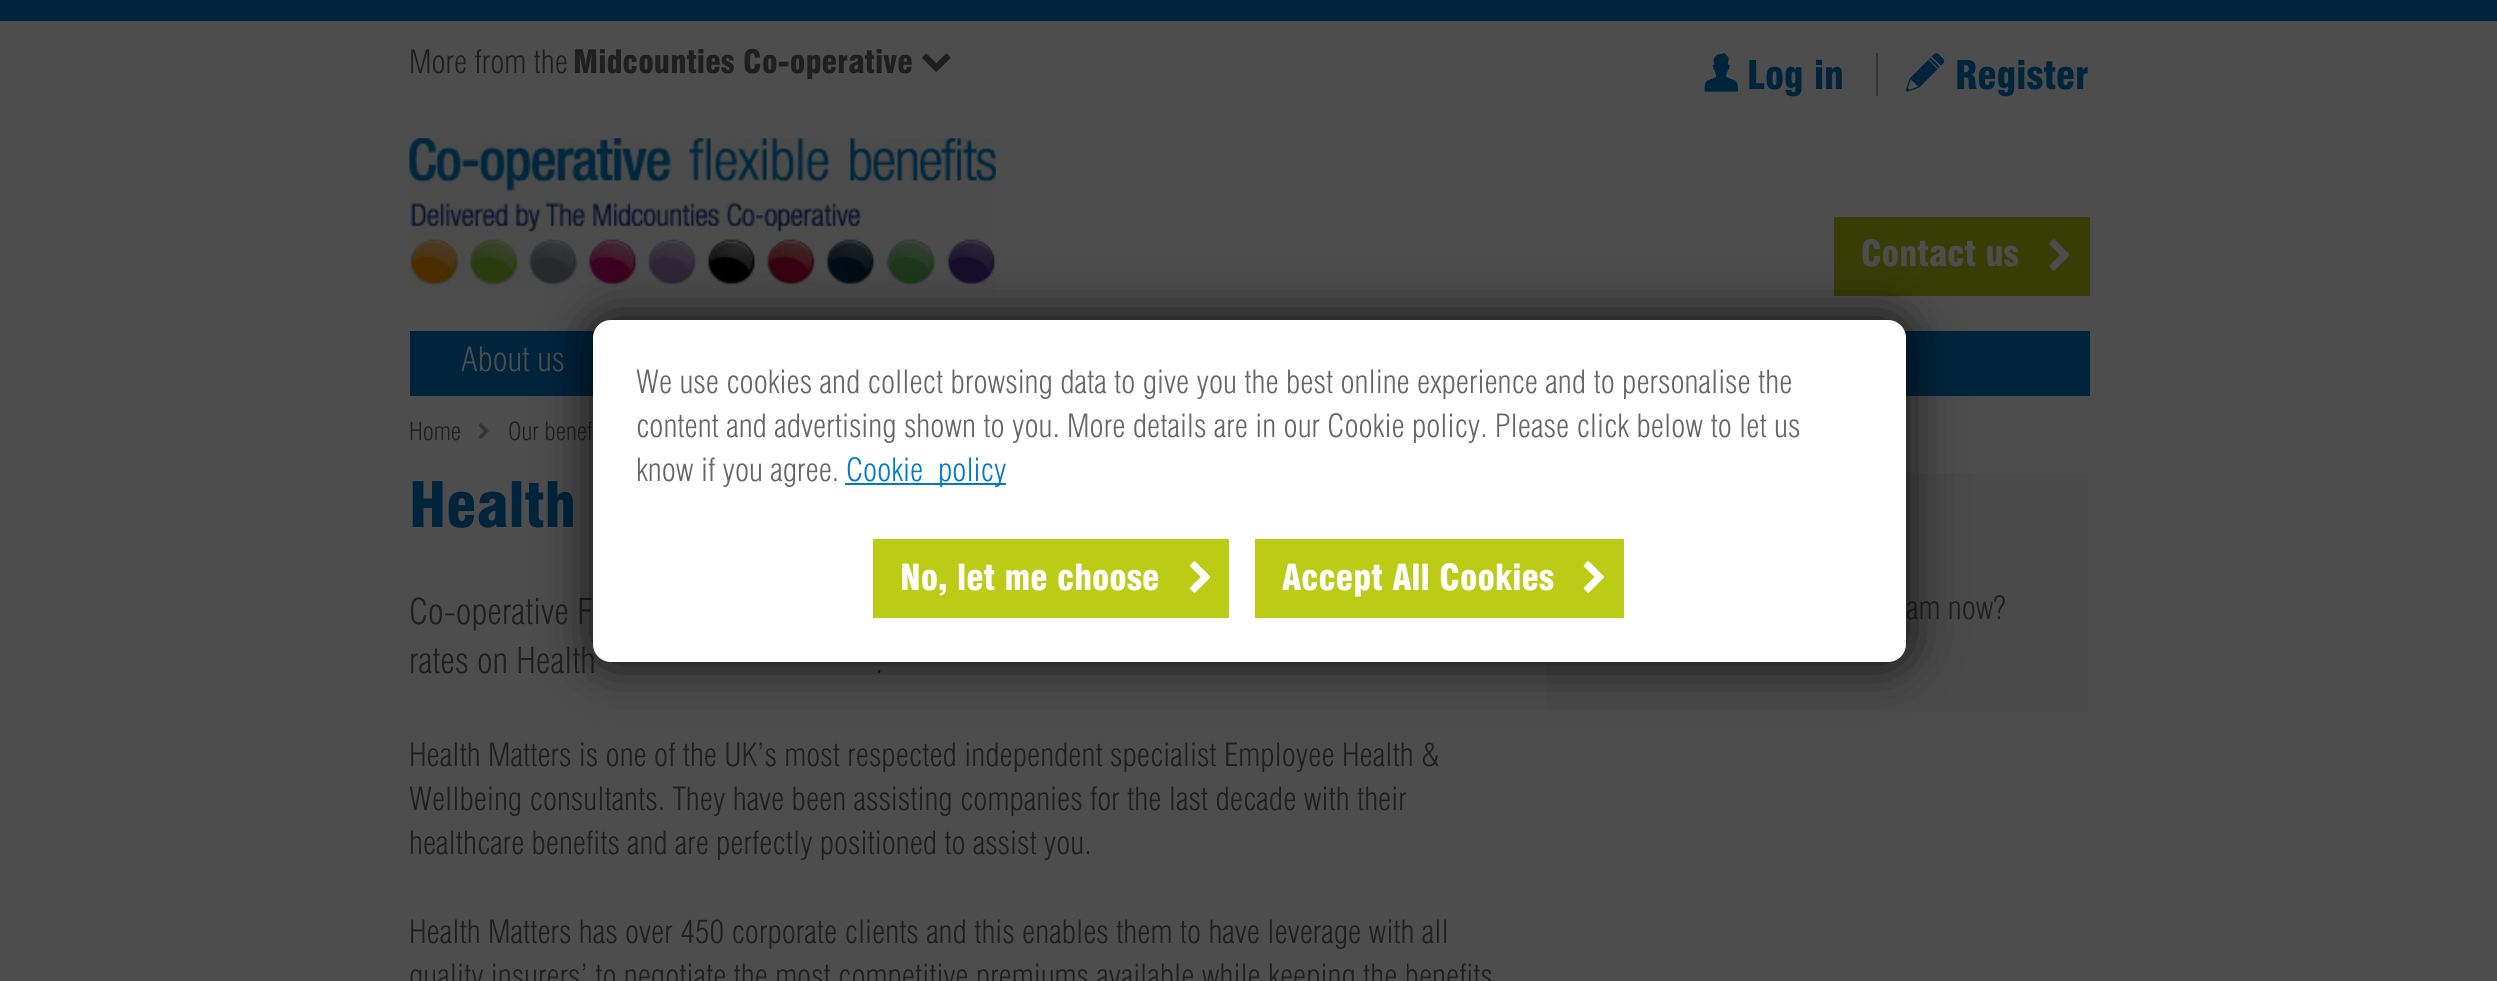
import math
import cairo

surface = cairo.ImageSurface(cairo.FORMAT_RGB24, 2497, 981)
c = cairo.Context(surface)
options = cairo.FontOptions()
options.set_hint_metrics(cairo.HINT_METRICS_OFF)
options.set_hint_style(cairo.HINT_STYLE_NONE)
c.set_font_options(options)
c.set_miter_limit(4)
def C(code):
 c.set_source_rgb(*(v / 255 for v in bytes.fromhex(code[-6:])))
def F(family, size, italic, bold):
 c.select_font_face(family, cairo.FONT_SLANT_ITALIC if italic else cairo.FONT_SLANT_NORMAL, cairo.FONT_WEIGHT_BOLD if bold else cairo.FONT_WEIGHT_NORMAL)
 c.set_font_size(size)
def T(x, y, s):
 c.move_to(x, y)
 c.show_text(s)
def L(x, y, s, letter, word):
 c.move_to(x, y)
 for ch in s:
  c.show_text(ch)
  c.rel_move_to(letter + word * (ch == ' '), 0)
def R(x, y, w, h):
 c.rectangle(x, y, w, h)
 c.fill()
def Q(x, y, w, h, r):
 c.new_sub_path()
 for i, (u, v) in enumerate([(x + w - r, y + h - r), (x + r, y + h - r), (x + r, y + r), (x + w - r, y + r)]):
  c.arc(u, v, r, i * math.pi / 2, (i + 1) * math.pi / 2)
 c.close_path()
def S(x, y, w, h, r, blur, alpha):
 c.push_group_with_content(cairo.CONTENT_ALPHA)
 c.set_operator(cairo.OPERATOR_SOURCE)
 for i in range(15, -16, -2):
  e = blur * i / 6
  if min(w, h) + 2 * e > 0:
   c.set_source_rgba(0, 0, 0, alpha * math.erfc((i - 1) / 8.5) / 2)
   Q(x - e, y - e, w + 2 * e, h + 2 * e, max(0, min(r + e + blur * .6, min(w, h) / 2 + e)))
   c.fill()
 c.mask(c.pop_group())
def I(path, x, y, w, h):
 c.save()
 c.set_source_surface(cairo.ImageSurface.create_from_png(path), x, y)
 c.rectangle(x, y, w, h)
 c.fill()
 c.restore()
C('4d4d4d')
c.paint()
C('00243c')
R(0,0,2497,21)
F('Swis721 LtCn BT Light',31.5,0,0)
C('1f1f1f')
T(409,73,'More from the')
F('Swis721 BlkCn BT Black',31.5,0,0)
T(573,73,'Midcounties Co-operative')
I('1.png',922,53,29,19)
I('2.png',1704,53,34,39)
F('Swis721 BlkCn BT Black',38.5,0,0)
C('00243c')
T(1747,89,'Log in')
C('353434')
R(1876,53,2,43)
I('3.png',1905,53,40,39)
C('00243c')
T(1955,89,'Register')
I('4.png',409,138,587,155)
C('383d06')
R(1834,217,256,79)
F('Swis721 BlkCn BT Black',35,0,0)
C('4d4d4d')
T(1861,266,'Contact us')
I('5.png',2049,239,21,32)
C('00243c')
R(410,331,1680,65)
F('Swis721 LtCn BT Light',33,0,0)
C('4d4d4d')
T(461,371,'About us')
F('Swis721 LtCn BT Light',24.5,0,0)
C('1f1f1f')
T(409,440,'Home')
I('6.png',478,423,11,16)
T(508,440,'Our benef')
F('Swis721 BlkCn BT Black',61,0,0)
C('00243c')
T(409,527,'Health')
F('Swis721 LtCn BT Light',35,0,0)
C('1f1f1f')
T(409,624,'Co-operative F')
T(409,673,'rates on Health')
T(875,673,'.')
F('Swis721 LtCn BT Light',31.5,0,0)
T(409,766,'Health Matters is one of the UK’s most respected independent specialist Employee Health &')
T(409,810,'Wellbeing consultants. They have been assisting companies for the last decade with their')
L(409,854,'healthcare benefits and are perfectly positioned to assist you.',0,-.25)
T(409,943,'Health Matters has over 450 corporate clients and this enables them to have leverage with all')
L(409,987,'quality insurers’ to negotiate the most competitive premiums available while keeping the benefits',0,-.1)
C('4a4a4a')
R(1547,473,541,239)
C('1f1f1f')
T(1906,619,'am now?')
C('000000')
S(593,320,1313,342,18,26,.8)
C('ffffff')
Q(593,320,1313,342,18)
c.fill()
C('666666')
T(636,393,'We use cookies and collect browsing data to give you the best online experience and to personalise the')
T(636,437,'content and advertising shown to you. More details are in our Cookie policy. Please click below to let us')
T(636,481,'know if you agree.')
C('0079c9')
R(845,483,161,2)
T(846,481,'Cookie')
T(938,481,'policy')
C('bccb15')
R(873,539,356,79)
F('Swis721 BlkCn BT Black',35,0,0)
C('ffffff')
T(900,590,'No, let me choose')
I('7.png',1190,561,21,32)
C('bccb15')
R(1255,539,369,79)
C('ffffff')
T(1282,590,'Accept All Cookies')
I('8.png',1583,561,21,32)
surface.write_to_png('o.png')
